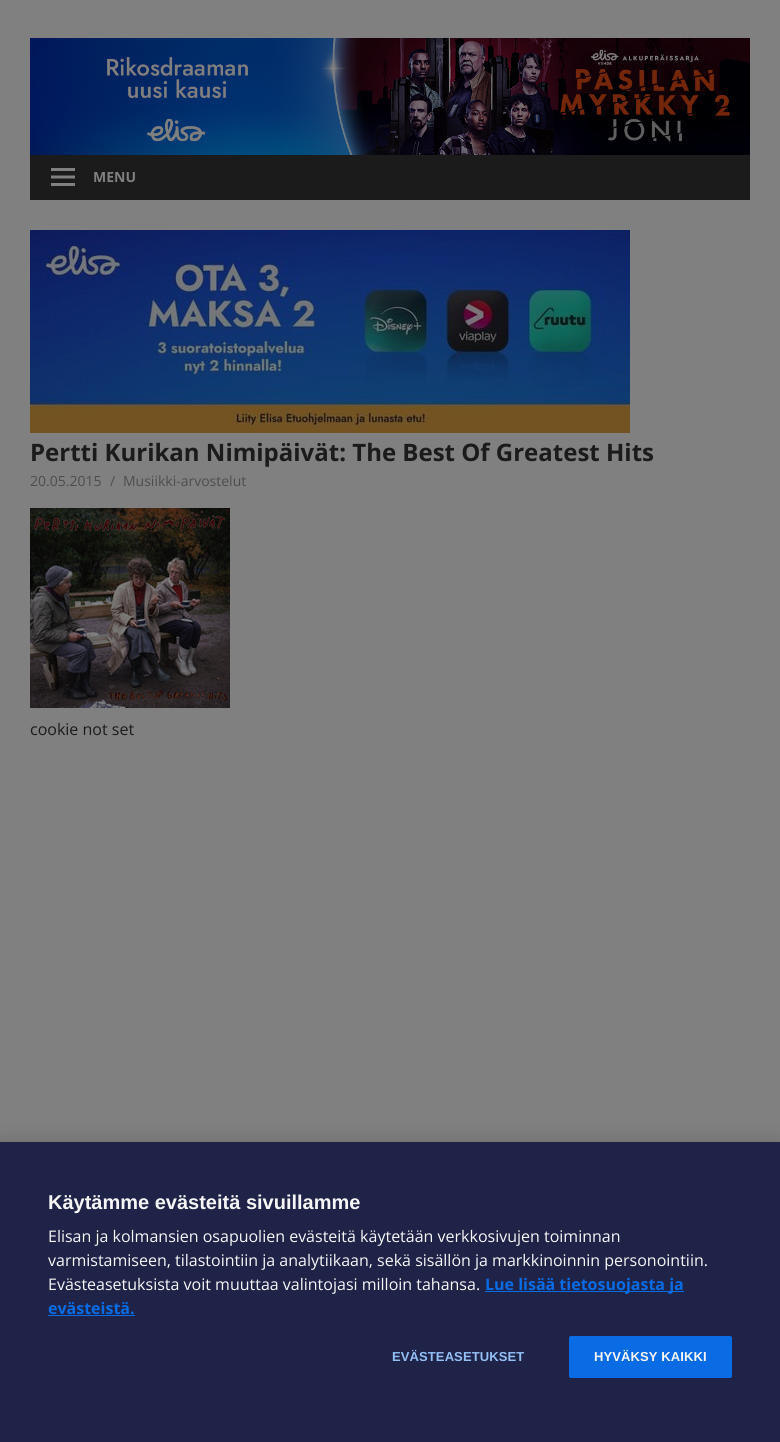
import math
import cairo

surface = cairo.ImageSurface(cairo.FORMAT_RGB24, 780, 1442)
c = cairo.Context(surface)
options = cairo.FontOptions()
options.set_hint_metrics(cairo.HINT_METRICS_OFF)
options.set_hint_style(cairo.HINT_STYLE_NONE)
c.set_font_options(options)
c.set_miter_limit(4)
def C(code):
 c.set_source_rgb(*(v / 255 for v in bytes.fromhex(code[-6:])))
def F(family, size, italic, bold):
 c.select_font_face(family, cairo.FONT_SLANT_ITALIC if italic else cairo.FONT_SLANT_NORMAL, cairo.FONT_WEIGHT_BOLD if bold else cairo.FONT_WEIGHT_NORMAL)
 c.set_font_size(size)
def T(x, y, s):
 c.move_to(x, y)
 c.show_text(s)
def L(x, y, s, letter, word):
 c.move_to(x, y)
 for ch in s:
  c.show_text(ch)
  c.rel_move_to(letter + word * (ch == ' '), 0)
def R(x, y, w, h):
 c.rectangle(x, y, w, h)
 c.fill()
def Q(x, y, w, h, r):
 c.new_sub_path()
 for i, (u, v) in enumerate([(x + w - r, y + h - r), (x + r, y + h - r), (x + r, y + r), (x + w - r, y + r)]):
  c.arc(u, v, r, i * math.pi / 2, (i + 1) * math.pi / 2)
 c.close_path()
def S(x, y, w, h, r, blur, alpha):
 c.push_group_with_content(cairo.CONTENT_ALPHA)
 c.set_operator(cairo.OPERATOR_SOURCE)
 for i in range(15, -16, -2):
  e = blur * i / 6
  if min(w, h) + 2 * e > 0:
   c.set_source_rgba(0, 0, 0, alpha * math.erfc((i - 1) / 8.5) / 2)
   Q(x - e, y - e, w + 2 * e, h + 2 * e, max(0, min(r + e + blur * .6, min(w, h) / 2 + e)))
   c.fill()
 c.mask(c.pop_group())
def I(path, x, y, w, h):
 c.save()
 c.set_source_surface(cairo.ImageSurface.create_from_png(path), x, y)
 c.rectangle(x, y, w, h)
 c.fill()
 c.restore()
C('808080')
c.paint()
I('1.png',30,38,720,117)
C('1b1b1b')
R(30,155,720,45)
I('2.png',51,168,24,18)
F('Open Sans',14,0,1)
C('808080')
T(93,182,'MENU')
I('3.png',30,230,600,203)
F('Open Sans',24,0,1)
C('1b1b1b')
T(30,461,'Pertti Kurikan Nimipäivät: The Best Of Greatest Hits')
F('Open Sans',14,0,0)
C('4d4d4d')
T(30,486,'20.05.2015')
T(110,486,'/')
T(123,486,'Musiikki-arvostelut')
I('4.png',30,508,200,200)
F('Open Sans',16,0,0)
C('1b1b1b')
T(30,735,'cookie not set')
C('090909')
S(0,1142,780,300,0,9,.2)
C('1e2347')
R(0,1142,780,300)
F('Liberation Sans',20,0,1)
C('f6f6f6')
T(48,1209,'Käytämme evästeitä sivuillamme')
F('Open Sans',16,0,0)
T(48,1242,'Elisan ja kolmansien osapuolien evästeitä käytetään verkkosivujen toiminnan')
T(48,1266,'varmistamiseen, tilastointiin ja analytiikaan, sekä sisällön ja markkinoinnin personointiin.')
T(48,1290,'Evästeasetuksista voit muuttaa valintojasi milloin tahansa.')
C('096ce5')
R(485,1291,199,1)
F('Open Sans',16,0,1)
T(485,1290,'Lue lisää tietosuojasta ja')
T(48,1314,'evästeistä.')
R(48,1315,87,1)
F('Liberation Sans',13,0,1)
C('94c0f6')
L(392,1361,'EVÄSTEASETUKSET',.1,0)
C('096ce5')
Q(569.5,1336.5,162,41,1.5)
c.fill_preserve()
c.set_line_width(1)
c.stroke()
C('f6f6f6')
L(594,1361,'HYVÄKSY KAIKKI',.1,0)
surface.write_to_png('o.png')
